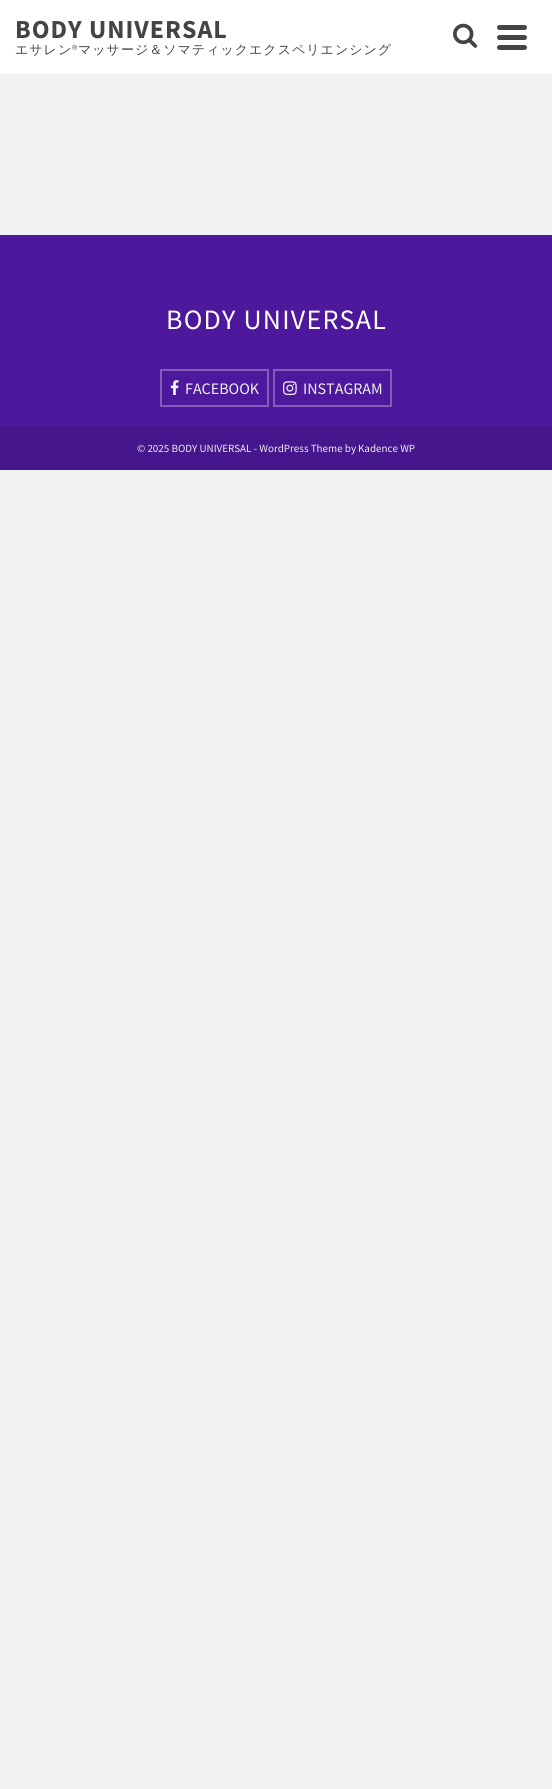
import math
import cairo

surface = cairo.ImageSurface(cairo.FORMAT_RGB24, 552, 1789)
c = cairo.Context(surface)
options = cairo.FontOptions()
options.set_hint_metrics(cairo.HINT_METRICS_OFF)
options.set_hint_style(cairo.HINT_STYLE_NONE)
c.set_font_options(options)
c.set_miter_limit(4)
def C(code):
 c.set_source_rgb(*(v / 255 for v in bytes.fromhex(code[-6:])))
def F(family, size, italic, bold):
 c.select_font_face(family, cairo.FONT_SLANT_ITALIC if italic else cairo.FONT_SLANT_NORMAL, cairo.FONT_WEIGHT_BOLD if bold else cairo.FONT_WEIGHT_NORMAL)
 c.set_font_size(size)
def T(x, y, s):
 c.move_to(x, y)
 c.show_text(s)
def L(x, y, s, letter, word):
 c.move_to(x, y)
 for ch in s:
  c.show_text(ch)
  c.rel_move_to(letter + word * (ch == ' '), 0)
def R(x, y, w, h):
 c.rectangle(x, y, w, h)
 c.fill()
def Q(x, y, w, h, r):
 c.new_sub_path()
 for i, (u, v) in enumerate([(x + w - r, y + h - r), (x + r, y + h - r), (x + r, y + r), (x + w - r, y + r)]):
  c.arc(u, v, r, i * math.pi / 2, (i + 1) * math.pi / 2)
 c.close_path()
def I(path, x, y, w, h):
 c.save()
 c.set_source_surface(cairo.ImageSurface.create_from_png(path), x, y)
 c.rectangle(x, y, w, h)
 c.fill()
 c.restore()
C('f2f2f2')
c.paint()
C('ffffff')
R(0,0,552,74)
F('Source Sans Pro',26,0,1)
C('444444')
L(15,38,'BODY UNIVERSAL',1,0)
F('WenQuanYi Zen Hei Medium',13,0,0)
L(15,54,'エサレン',1,0)
F('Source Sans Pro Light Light',13,0,0)
L(72,54,'®',1,0)
F('WenQuanYi Zen Hei Medium',13,0,0)
L(78,54,'マッサージ＆ソマティックエクスペリエンシング',1,0)
I('1.png',453,23,25,25)
Q(497,25,30,5,2.5)
c.fill()
Q(497,35,30,5,2.5)
c.fill()
Q(497,45,30,5,2.5)
c.fill()
C('4d189b')
R(0,235,552,191)
F('Source Sans Pro',28,0,0)
C('ffffff')
L(166,329,'BODY UNIVERSAL',1.25,0)
c.rectangle(161,370,107,36)
C('825db9')
c.stroke()
I('2.png',170,380,9,15)
F('Source Sans Pro',16,0,0)
C('eeeeee')
T(185,394,'FACEBOOK')
c.rectangle(274,370,117,36)
C('825db9')
c.stroke()
I('3.png',283,381,14,14)
C('eeeeee')
T(303,394,'INSTAGRAM')
C('45168c')
R(0,426,552,44)
F('Source Sans Pro',11,0,0)
C('eeeeee')
T(137,452,'© 2025 BODY UNIVERSAL - WordPress Theme by')
T(358,452,'Kadence WP')
surface.write_to_png('o.png')
